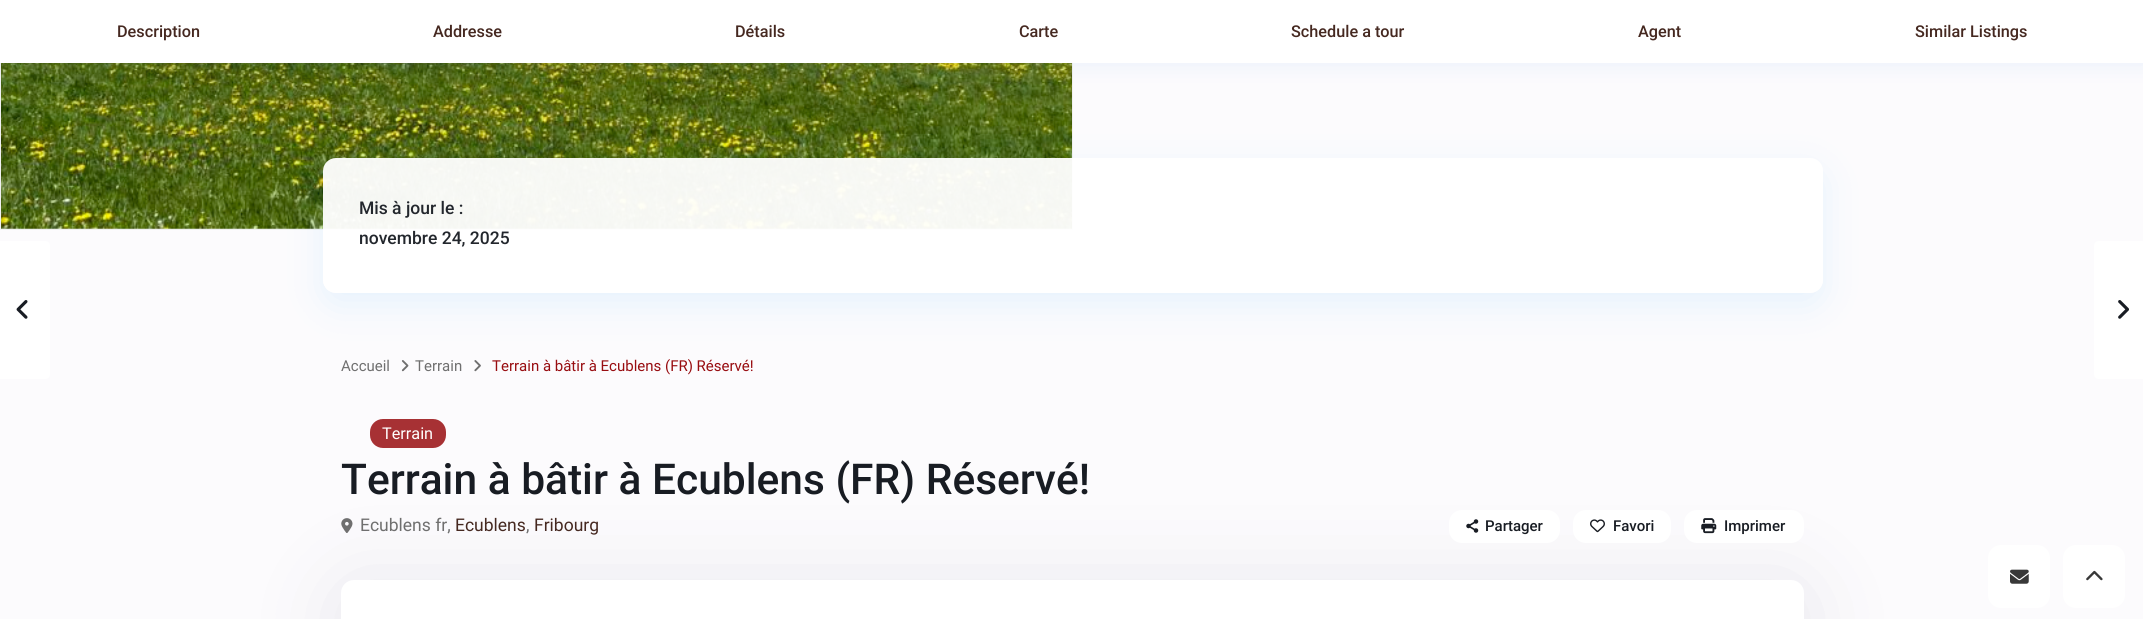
import math
import cairo

surface = cairo.ImageSurface(cairo.FORMAT_RGB24, 2143, 619)
c = cairo.Context(surface)
options = cairo.FontOptions()
options.set_hint_metrics(cairo.HINT_METRICS_OFF)
options.set_hint_style(cairo.HINT_STYLE_NONE)
c.set_font_options(options)
c.set_miter_limit(4)
def C(code):
 c.set_source_rgb(*(v / 255 for v in bytes.fromhex(code[-6:])))
def F(family, size, italic, bold):
 c.select_font_face(family, cairo.FONT_SLANT_ITALIC if italic else cairo.FONT_SLANT_NORMAL, cairo.FONT_WEIGHT_BOLD if bold else cairo.FONT_WEIGHT_NORMAL)
 c.set_font_size(size)
def T(x, y, s):
 c.move_to(x, y)
 c.show_text(s)
def R(x, y, w, h):
 c.rectangle(x, y, w, h)
 c.fill()
def Q(x, y, w, h, r):
 c.new_sub_path()
 for i, (u, v) in enumerate([(x + w - r, y + h - r), (x + r, y + h - r), (x + r, y + r), (x + w - r, y + r)]):
  c.arc(u, v, r, i * math.pi / 2, (i + 1) * math.pi / 2)
 c.close_path()
def S(x, y, w, h, r, blur, alpha):
 c.push_group_with_content(cairo.CONTENT_ALPHA)
 c.set_operator(cairo.OPERATOR_SOURCE)
 for i in range(15, -16, -2):
  e = blur * i / 6
  if min(w, h) + 2 * e > 0:
   c.set_source_rgba(0, 0, 0, alpha * math.erfc((i - 1) / 8.5) / 2)
   Q(x - e, y - e, w + 2 * e, h + 2 * e, max(0, min(r + e + blur * .6, min(w, h) / 2 + e)))
   c.fill()
 c.mask(c.pop_group())
def I(path, x, y, w, h):
 c.save()
 c.set_source_surface(cairo.ImageSurface.create_from_png(path), x, y)
 c.rectangle(x, y, w, h)
 c.fill()
 c.restore()
C('fcfbfd')
c.paint()
I('1.png',1,63,1071,166)
c.rectangle(.5,-.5,1072,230)
C('f0f0f0')
c.set_line_width(1)
c.stroke()
C('006ee1')
S(4,1,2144,63,0,12.5,.08)
C('ffffff')
R(0,0,2143,63)
F('Roboto Medium',16.25,0,0)
C('452820')
T(117,37,'Description')
T(433,37,'Addresse')
T(735,37,'Détails')
T(1019,37,'Carte')
T(1291,37,'Schedule a tour')
T(1638,37,'Agent')
T(1915,37,'Similar Listings')
I('2.png',401,360,8,12)
I('3.png',474,360,7,12)
c.save()
c.set_fill_rule(cairo.FILL_RULE_EVEN_ODD)
c.new_path()
c.move_to(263,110)
c.line_to(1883,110)
c.line_to(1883,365)
c.line_to(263,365)
c.close_path()
c.move_to(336,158)
c.line_to(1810,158)
c.curve_to(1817,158,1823,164,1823,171)
c.line_to(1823,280)
c.curve_to(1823,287,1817,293,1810,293)
c.line_to(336,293)
c.curve_to(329,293,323,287,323,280)
c.line_to(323,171)
c.curve_to(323,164,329,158,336,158)
c.close_path()
c.clip()
C('0798ff')
S(323,170,1500,135,13,19.5,.09)
c.restore()
c.set_source_rgba(1,1,1,0.95)
Q(323,158,1500,135,13)
c.fill()
F('Roboto Medium',17.5,0,0)
C('23272d')
T(359,214,'Mis à jour le :')
T(359,244,'novembre 24, 2025')
F('Roboto',15,0,0)
C('6f6f6f')
T(341,371,'Accueil')
T(415,371,'Terrain')
C('980d11')
T(492,371,'Terrain à bâtir à Ecublens (FR) Réservé!')
C('a73134')
Q(370,419,76,29,13)
c.fill()
F('Roboto',16.25,0,0)
C('ffffff')
T(382,439,'Terrain')
C('262a4c')
S(341,586,1463,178,13,44,.1)
F('Roboto Medium',42.5,0,0)
C('181c23')
T(341,494,'Terrain à bâtir à Ecublens (FR) Réservé!')
I('4.png',341,518,12,15)
F('Roboto',17.5,0,0)
C('6f6f6f')
T(360,531,'Ecublens fr,')
C('452820')
T(455,531,'Ecublens')
C('6f6f6f')
T(526,531,',')
C('452820')
T(534,531,'Fribourg')
C('ffffff')
Q(1449,510,111,33,13)
c.fill()
I('5.png',1466,519,13,14)
F('Roboto Medium',15,0,0)
C('181c23')
T(1485,531,'Partager')
C('ffffff')
Q(1573,510,98,33,13)
c.fill()
I('6.png',1590,519,15,14)
C('181c23')
T(1613,531,'Favori')
C('ffffff')
Q(1684,510,120,33,13)
c.fill()
I('7.png',1701,518,16,16)
C('181c23')
T(1724,531,'Imprimer')
C('ffffff')
Q(341,580,1463,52,13)
c.fill()
c.new_path()
c.move_to(-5,241)
c.line_to(45,241)
c.curve_to(48,241,50,243,50,246)
c.line_to(50,374)
c.curve_to(50,377,48,379,45,379)
c.line_to(-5,379)
c.close_path()
c.fill()
I('8.png',16,300,12,19)
c.new_path()
c.move_to(2099,241)
c.line_to(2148,241)
c.line_to(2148,379)
c.line_to(2099,379)
c.curve_to(2096,379,2094,377,2094,374)
c.line_to(2094,246)
c.curve_to(2094,243,2096,241,2099,241)
c.close_path()
c.fill()
I('9.png',2118,300,11,19)
Q(1988,545,62,63,13)
c.fill()
I('10.png',2010,569,19,15)
Q(2063,545,62,63,13)
c.fill()
I('11.png',2086,570,17,11)
surface.write_to_png('o.png')
